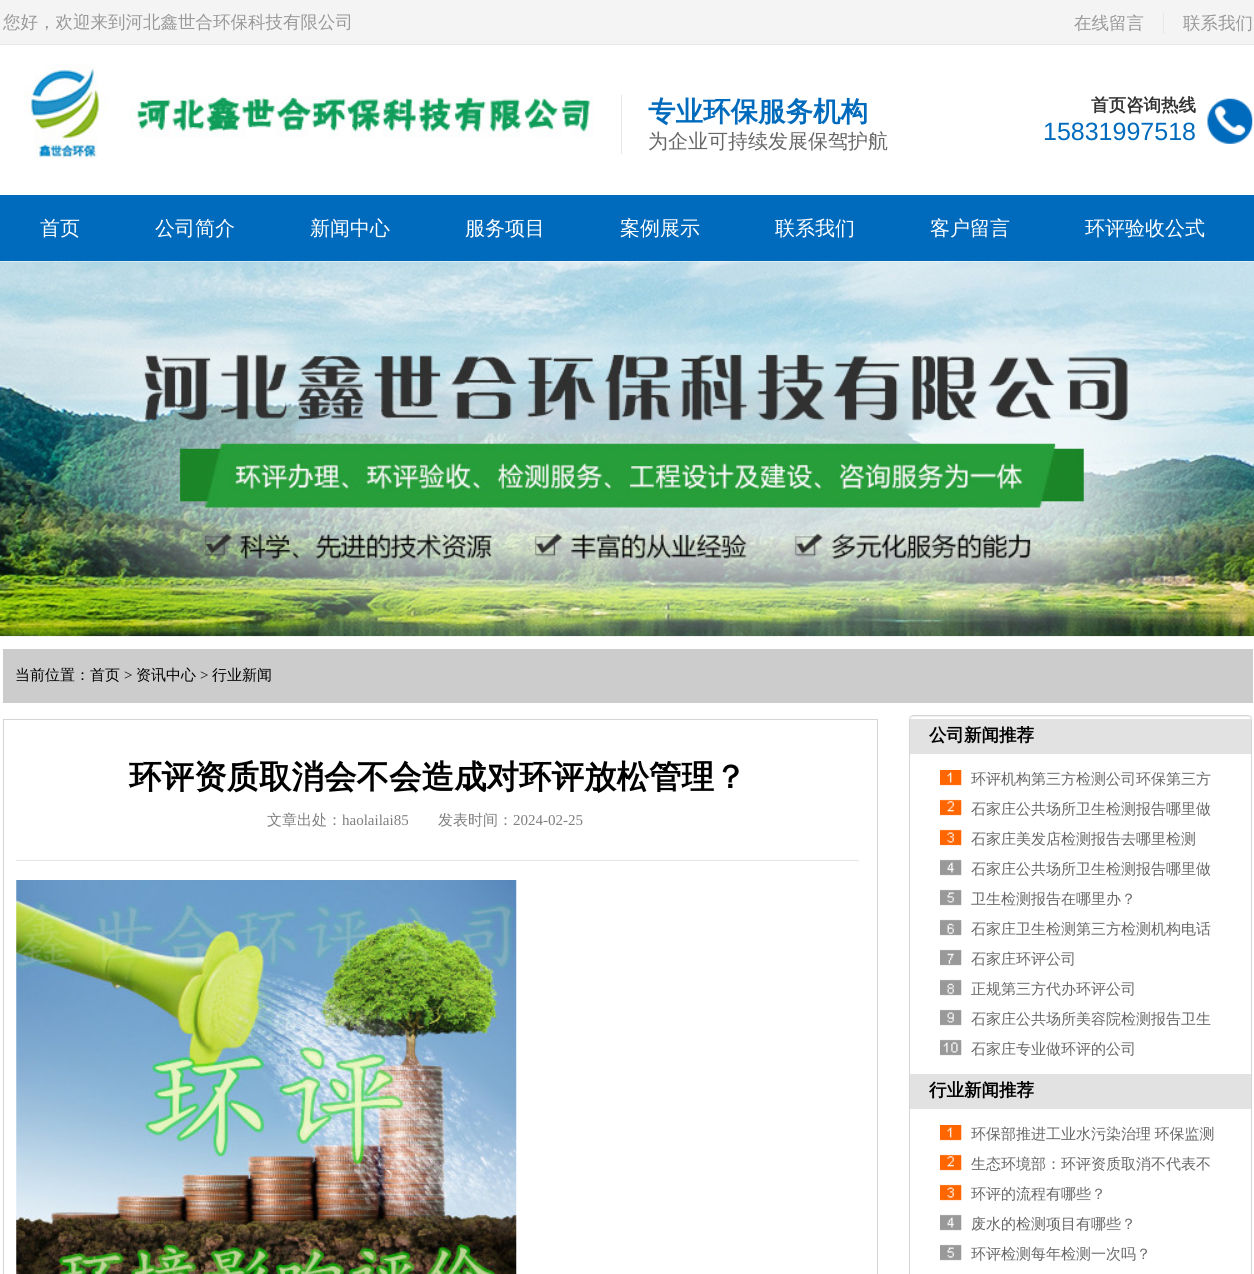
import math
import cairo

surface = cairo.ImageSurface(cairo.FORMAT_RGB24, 1254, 1274)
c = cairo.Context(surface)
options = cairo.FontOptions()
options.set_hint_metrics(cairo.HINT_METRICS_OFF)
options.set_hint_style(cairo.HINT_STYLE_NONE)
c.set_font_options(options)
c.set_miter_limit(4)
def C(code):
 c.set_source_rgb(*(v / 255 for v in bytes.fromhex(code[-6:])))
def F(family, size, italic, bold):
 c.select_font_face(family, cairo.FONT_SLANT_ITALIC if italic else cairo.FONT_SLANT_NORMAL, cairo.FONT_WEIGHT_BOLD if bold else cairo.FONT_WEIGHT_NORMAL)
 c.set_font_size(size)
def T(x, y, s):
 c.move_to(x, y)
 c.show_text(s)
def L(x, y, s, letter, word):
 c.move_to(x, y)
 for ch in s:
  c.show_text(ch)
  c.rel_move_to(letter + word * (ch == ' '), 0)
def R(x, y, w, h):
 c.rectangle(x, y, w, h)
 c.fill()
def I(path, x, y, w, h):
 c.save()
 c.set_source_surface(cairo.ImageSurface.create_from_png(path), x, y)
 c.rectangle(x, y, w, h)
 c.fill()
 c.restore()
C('ffffff')
c.paint()
C('f4f4f4')
R(0,0,1254,44)
C('e7e7e7')
R(0,44,1254,1)
F('WenQuanYi Zen Hei Medium',17.5,0,0)
C('999999')
T(3,28,'您好，欢迎来到河北鑫世合环保科技有限公司')
C('e7e7e7')
R(1163,13,1,21)
C('999999')
T(1074,29,'在线留言')
T(1183,29,'联系我们')
I('1.png',24,64,569,95)
C('e7e7e7')
R(621,95,1,59)
F('WenQuanYi Zen Hei',27.5,0,1)
C('006bbd')
T(648,121,'专业环保服务机构')
F('WenQuanYi Zen Hei Medium',20,0,0)
C('666666')
T(648,148,'为企业可持续发展保驾护航')
I('2.png',1207,98,46,46)
F('WenQuanYi Zen Hei',17.5,0,1)
C('333333')
T(1091,111,'首页咨询热线')
F('Liberation Sans',25,0,0)
C('006bbd')
T(1043,140,'15831997518')
R(0,195,1254,66)
F('WenQuanYi Zen Hei Medium',20,0,0)
C('ffffff')
T(40,235,'首页')
T(155,235,'公司简介')
T(310,235,'新闻中心')
T(465,235,'服务项目')
T(620,235,'案例展示')
T(775,235,'联系我们')
T(930,235,'客户留言')
T(1085,235,'环评验收公式')
I('3.png',0,261,1254,376)
C('cccccc')
R(3,649,1250,54)
F('WenQuanYi Zen Hei Medium',15,0,0)
C('000000')
T(15,680,'当前位置：首页')
F('Liberation Serif',15,0,0)
T(124,680,'>')
F('WenQuanYi Zen Hei Medium',15,0,0)
T(136,680,'资讯中心')
F('Liberation Serif',15,0,0)
T(200,680,'>')
F('WenQuanYi Zen Hei Medium',15,0,0)
T(212,680,'行业新闻')
c.rectangle(3.5,719.5,874,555)
C('d5d5d5')
c.set_line_width(1)
c.stroke()
F('WenQuanYi Zen Hei',32.5,0,1)
C('000000')
T(129,788,'环评资质取消会不会造成对环评放松管理？')
C('e5e5e5')
R(16,860,843,1)
F('WenQuanYi Zen Hei Medium',15,0,0)
C('7e7e7e')
T(267,825,'文章出处：')
F('Liberation Serif',15,0,0)
T(342,825,'haolailai85')
F('WenQuanYi Zen Hei Medium',15,0,0)
T(438,825,'发表时间：')
F('Liberation Serif',15,0,0)
T(513,825,'2024-02-25')
I('4.png',16,880,501,394)
I('5.png',909,715,344,4)
C('d5d5d5')
R(1251,719,1,555)
R(909,719,1,555)
C('e2e2e2')
R(910,719,341,35)
F('WenQuanYi Zen Hei',17.5,0,1)
C('000000')
T(929,741,'公司新闻推荐')
I('6.png',940,770,22,286)
F('WenQuanYi Zen Hei Medium',15,0,0)
C('666666')
T(971,784,'环评机构第三方检测公司环保第三方')
T(971,814,'石家庄公共场所卫生检测报告哪里做')
T(971,844,'石家庄美发店检测报告去哪里检测')
T(971,874,'石家庄公共场所卫生检测报告哪里做')
T(971,904,'卫生检测报告在哪里办？')
T(971,934,'石家庄卫生检测第三方检测机构电话')
T(971,964,'石家庄环评公司')
T(971,994,'正规第三方代办环评公司')
T(971,1024,'石家庄公共场所美容院检测报告卫生')
T(971,1054,'石家庄专业做环评的公司')
C('e2e2e2')
R(910,1074,341,35)
F('WenQuanYi Zen Hei',17.5,0,1)
C('000000')
T(929,1096,'行业新闻推荐')
I('7.png',940,1125,22,136)
F('WenQuanYi Zen Hei Medium',15,0,0)
C('666666')
L(971,1139,'环保部推进工业水污染治理 环保监测',0,-1)
T(971,1169,'生态环境部：环评资质取消不代表不')
T(971,1199,'环评的流程有哪些？')
T(971,1229,'废水的检测项目有哪些？')
T(971,1259,'环评检测每年检测一次吗？')
surface.write_to_png('o.png')
